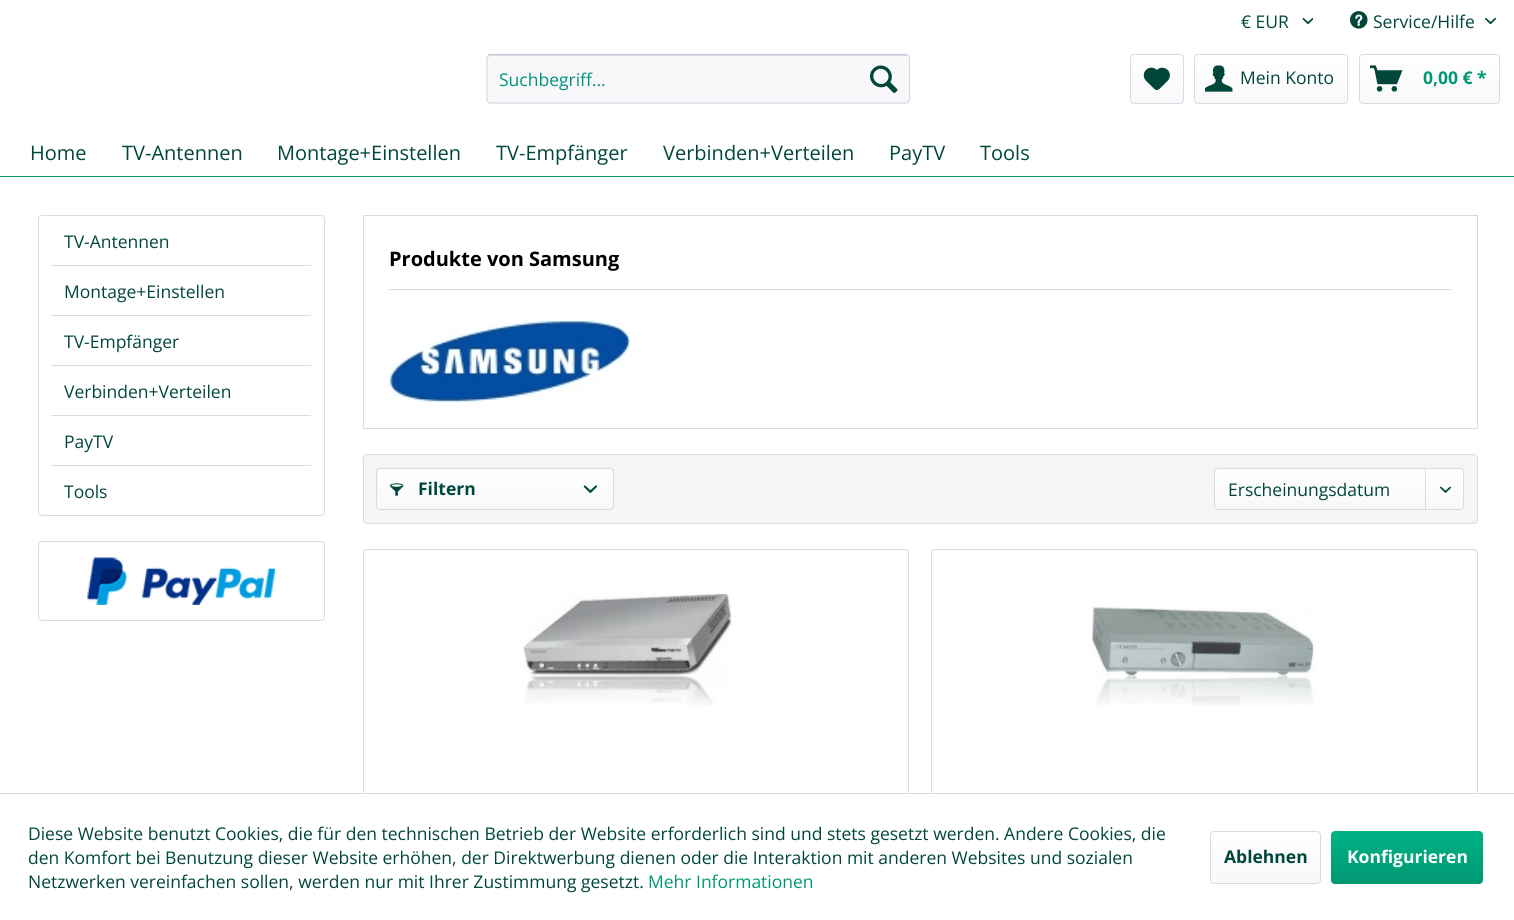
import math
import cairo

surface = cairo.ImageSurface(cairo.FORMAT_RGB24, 1514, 920)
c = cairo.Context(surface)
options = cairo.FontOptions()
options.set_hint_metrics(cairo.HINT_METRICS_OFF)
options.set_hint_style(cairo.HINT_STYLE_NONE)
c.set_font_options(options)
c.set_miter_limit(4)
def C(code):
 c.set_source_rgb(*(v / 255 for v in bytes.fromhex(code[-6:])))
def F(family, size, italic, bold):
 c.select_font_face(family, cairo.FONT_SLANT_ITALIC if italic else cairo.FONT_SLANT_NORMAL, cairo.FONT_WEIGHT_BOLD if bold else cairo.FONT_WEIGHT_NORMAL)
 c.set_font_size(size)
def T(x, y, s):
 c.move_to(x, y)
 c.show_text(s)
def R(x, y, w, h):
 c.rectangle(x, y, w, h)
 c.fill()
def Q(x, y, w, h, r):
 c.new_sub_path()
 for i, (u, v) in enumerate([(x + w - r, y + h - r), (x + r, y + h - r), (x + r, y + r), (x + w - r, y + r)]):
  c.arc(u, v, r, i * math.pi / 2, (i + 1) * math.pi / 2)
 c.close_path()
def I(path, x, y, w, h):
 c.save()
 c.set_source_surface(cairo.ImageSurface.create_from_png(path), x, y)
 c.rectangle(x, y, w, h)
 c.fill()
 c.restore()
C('ffffff')
c.paint()
F('Open Sans',17.5,0,0)
C('00473b')
T(1241,28,'€ EUR')
I('1.png',1302,17,11,8)
I('2.png',1350,11,18,18)
T(1373,28,'Service/Hilfe')
I('3.png',1485,17,11,8)
C('f8f8fa')
Q(486,54,424,50,4)
c.fill()
C('dadae5')
c.new_path()
c.move_to(490,56)
c.line_to(906,56)
c.curve_to(908,56,909,57,909,59)
c.curve_to(909,57,909,55,906,55)
c.line_to(490,55)
c.line_to(488,56)
c.line_to(488,59)
c.curve_to(488,57,489,56,490,56)
c.close_path()
c.fill()
c.new_path()
c.move_to(488,55.5)
c.line_to(490,54.5)
c.line_to(906,54.5)
c.line_to(908.5,55.5)
C('cbcbdb')
c.set_line_width(1.2)
c.stroke()
c.new_path()
c.move_to(908.5,55.5)
c.line_to(909.5,57.5)
c.line_to(909.5,100)
c.line_to(908.5,102)
c.line_to(906,103)
c.line_to(490,103)
c.line_to(488,102)
c.line_to(487,100)
c.line_to(487,57.5)
c.line_to(488,55.5)
C('dadae5')
c.stroke()
C('00937b')
T(499,86,'Suchbegriff...')
I('4.png',870,65,28,28)
gradient = cairo.LinearGradient(1157,55,1157,103)
gradient.add_color_stop_rgba(0,1,1,1,1)
gradient.add_color_stop_rgba(1,0.973,0.973,0.98,1)
c.set_source(gradient)
Q(1131,55,52,48,2.5)
c.fill()
Q(1130.5,54.5,53,49,3.5)
C('dadae5')
c.set_line_width(1)
c.stroke()
I('5.png',1143,67,27,24)
gradient = cairo.LinearGradient(1271,55,1271,103)
gradient.add_color_stop_rgba(0,1,1,1,1)
gradient.add_color_stop_rgba(1,0.973,0.973,0.98,1)
c.set_source(gradient)
Q(1195,55,151,48,2.5)
c.fill()
Q(1194.5,54.5,153,49,3.5)
C('dadae5')
c.stroke()
I('6.png',1205,65,28,27)
C('00473b')
T(1240,84,'Mein Konto')
gradient = cairo.LinearGradient(1429,55,1429,103)
gradient.add_color_stop_rgba(0,1,1,1,1)
gradient.add_color_stop_rgba(1,0.973,0.973,0.98,1)
c.set_source(gradient)
Q(1360,55,139,48,2.5)
c.fill()
Q(1359.5,54.5,140,49,3.5)
C('dadae5')
c.stroke()
I('7.png',1370,65,33,27)
F('Open Sans',17.5,0,1)
C('009872')
T(1423,84,'0,00 € *')
R(0,176,1514,1)
F('Open Sans',20,0,0)
C('00473b')
T(30,160,'Home')
T(122,160,'TV-Antennen')
T(277,160,'Montage+Einstellen')
T(496,160,'TV-Empfänger')
T(663,160,'Verbinden+Verteilen')
T(889,160,'PayTV')
T(980,160,'Tools')
Q(38.5,215.5,286,300,3.5)
C('dadae5')
c.stroke()
R(51,265,260,1)
F('Open Sans',17.5,0,0)
C('00473b')
T(64,248,'TV-Antennen')
C('dadae5')
R(51,315,260,1)
C('00473b')
T(64,298,'Montage+Einstellen')
C('dadae5')
R(51,365,260,1)
C('00473b')
T(64,348,'TV-Empfänger')
C('dadae5')
R(51,415,260,1)
C('00473b')
T(64,398,'Verbinden+Verteilen')
C('dadae5')
R(51,465,260,1)
C('00473b')
T(64,448,'PayTV')
T(64,498,'Tools')
Q(38.5,541.5,286,79,3.5)
C('dadae5')
c.stroke()
I('8.png',87,557,188,48)
c.rectangle(363.5,215.5,1114,213)
c.stroke()
R(389,289,1062,1)
F('Open Sans',20,0,1)
C('000000')
T(389,266,'Produkte von Samsung')
I('9.png',388,319,243,84)
C('f5f5f8')
Q(363.5,454.5,1114,69,3.5)
c.fill_preserve()
C('dadae5')
c.stroke()
gradient = cairo.LinearGradient(495,469,495,509)
gradient.add_color_stop_rgba(0,1,1,1,1)
gradient.add_color_stop_rgba(1,0.973,0.973,0.98,1)
c.set_source(gradient)
Q(378,469,235,40,2.5)
c.fill()
Q(376.5,468.5,237,41,3.5)
C('dadae5')
c.stroke()
I('10.png',390,483,14,13)
F('Open Sans',17.5,0,1)
C('00473b')
T(418,495,'Filtern')
I('11.png',583,485,14,8)
gradient = cairo.LinearGradient(1339,469,1339,509)
gradient.add_color_stop_rgba(0,1,1,1,1)
gradient.add_color_stop_rgba(1,0.973,0.973,0.98,1)
c.set_source(gradient)
Q(1215,469,248,40,2.5)
c.fill()
Q(1214.5,468.5,249,41,3.5)
C('dadae5')
c.stroke()
F('Open Sans',17.5,0,0)
C('00473b')
T(1228,496,'Erscheinungsdatum')
C('dadae5')
R(1425,469,1,41)
I('12.png',1440,486,11,7)
Q(363.5,549.5,545,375,3.5)
c.stroke()
I('13.png',523,591,209,115)
Q(931.5,549.5,546,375,3.5)
c.stroke()
I('14.png',1092,607,224,99)
C('ffffff')
R(363,794,1115,126)
C('dadae5')
R(0,793,1514,1)
C('00473b')
T(28,840,'Diese Website benutzt Cookies, die für den technischen Betrieb der Website erforderlich sind und stets gesetzt werden. Andere Cookies, die')
T(28,864,'den Komfort bei Benutzung dieser Website erhöhen, der Direktwerbung dienen oder die Interaktion mit anderen Websites und sozialen')
T(28,888,'Netzwerken vereinfachen sollen, werden nur mit Ihrer Zustimmung gesetzt.')
C('009872')
T(648,888,'Mehr Informationen')
gradient = cairo.LinearGradient(1266,833,1266,883)
gradient.add_color_stop_rgba(0,1,1,1,1)
gradient.add_color_stop_rgba(1,0.973,0.973,0.98,1)
c.set_source(gradient)
Q(1211,833,109,50,2.5)
c.fill()
Q(1210.5,831.5,110,52,3.5)
C('dadae5')
c.stroke()
F('Open Sans',17.5,0,1)
C('00473b')
T(1224,863,'Ablehnen')
gradient = cairo.LinearGradient(1407,831,1407,884)
gradient.add_color_stop_rgba(0,0,0.698,0.522,1)
gradient.add_color_stop_rgba(1,0,0.596,0.447,1)
c.set_source(gradient)
Q(1331,831,152,53,4)
c.fill()
C('ffffff')
T(1347,863,'Konfigurieren')
surface.write_to_png('o.png')
